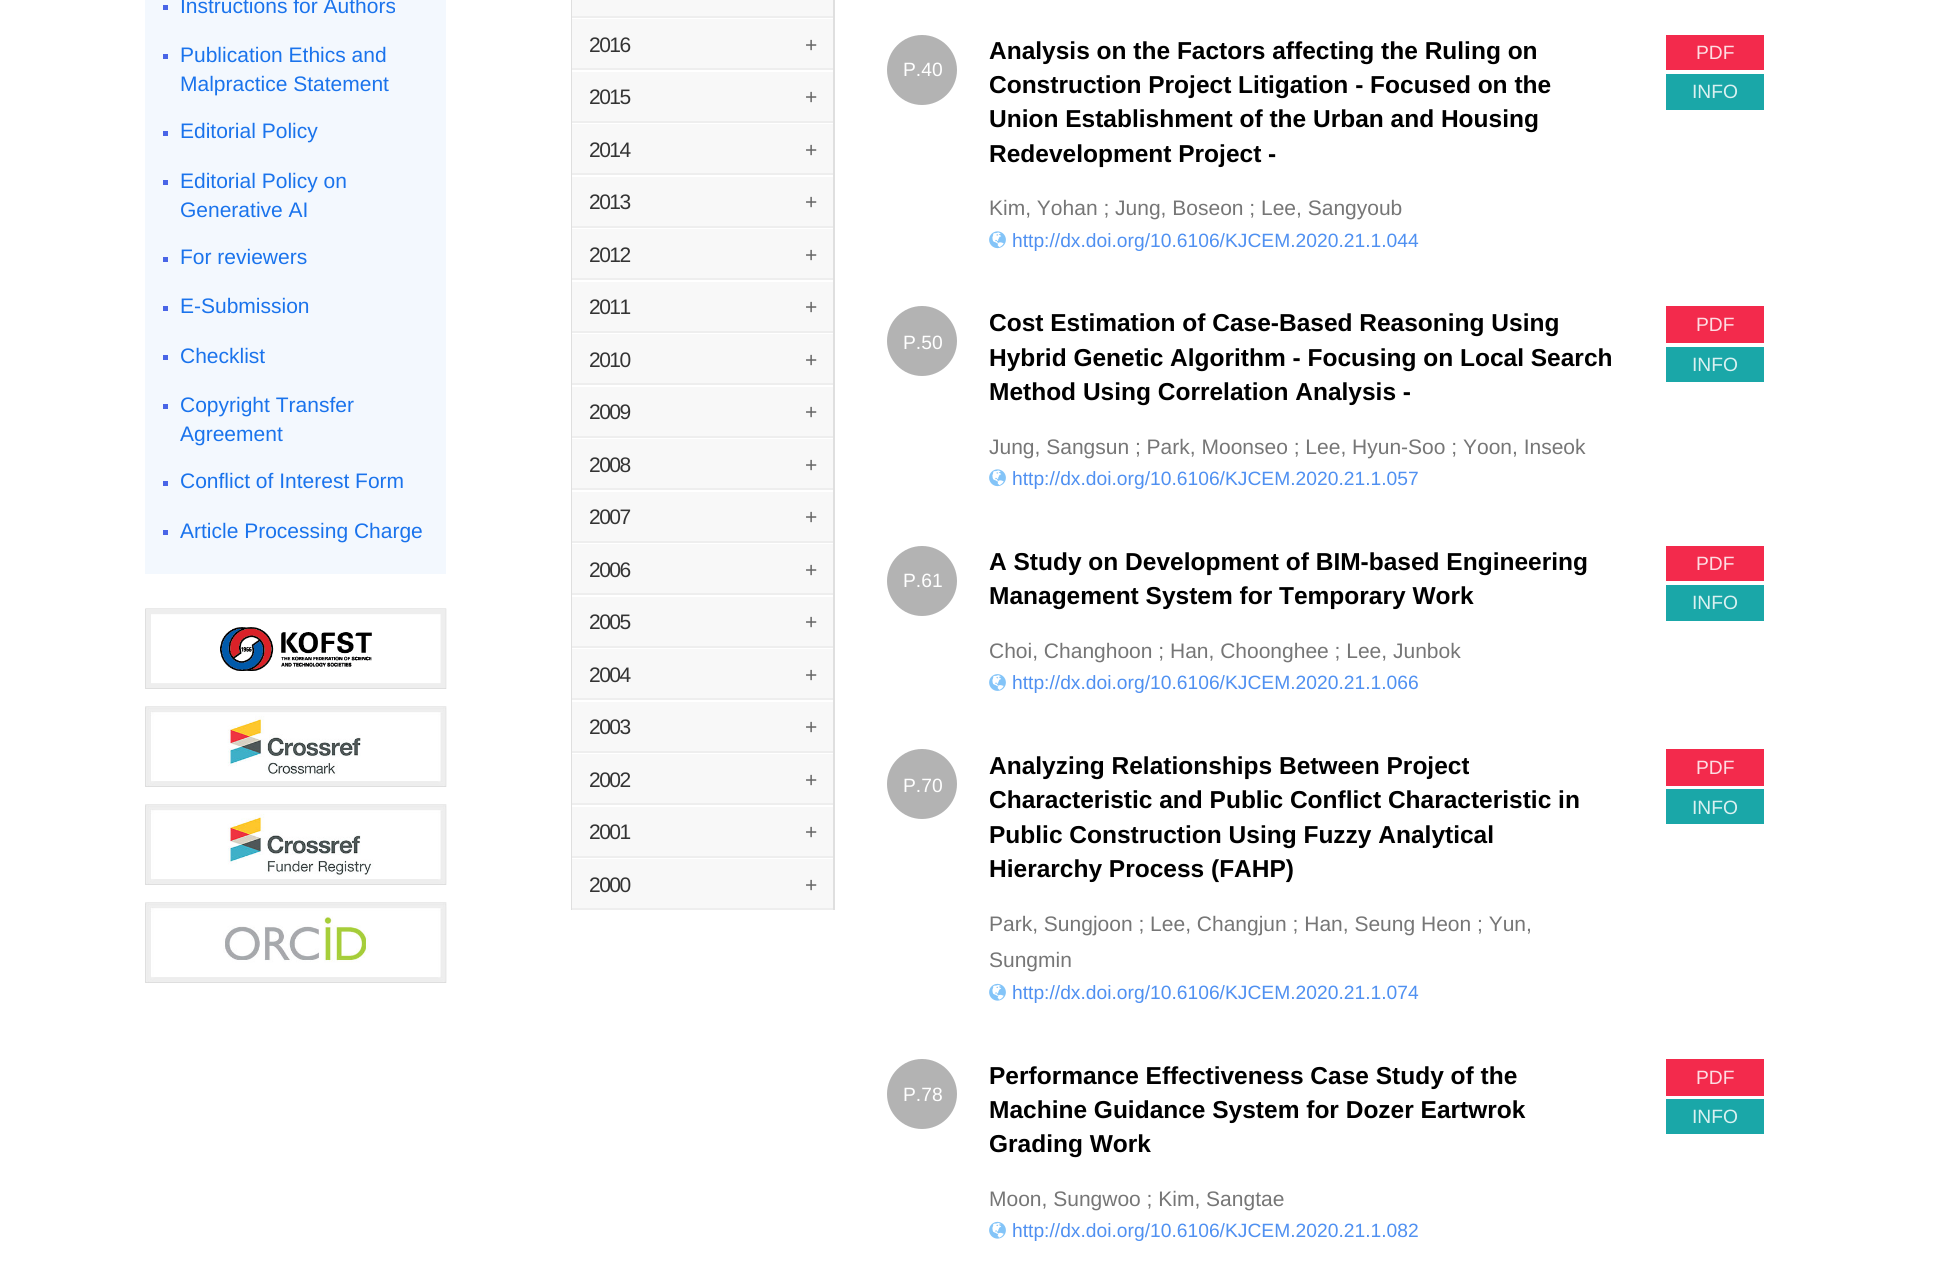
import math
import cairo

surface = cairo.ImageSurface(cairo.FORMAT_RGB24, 1934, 1276)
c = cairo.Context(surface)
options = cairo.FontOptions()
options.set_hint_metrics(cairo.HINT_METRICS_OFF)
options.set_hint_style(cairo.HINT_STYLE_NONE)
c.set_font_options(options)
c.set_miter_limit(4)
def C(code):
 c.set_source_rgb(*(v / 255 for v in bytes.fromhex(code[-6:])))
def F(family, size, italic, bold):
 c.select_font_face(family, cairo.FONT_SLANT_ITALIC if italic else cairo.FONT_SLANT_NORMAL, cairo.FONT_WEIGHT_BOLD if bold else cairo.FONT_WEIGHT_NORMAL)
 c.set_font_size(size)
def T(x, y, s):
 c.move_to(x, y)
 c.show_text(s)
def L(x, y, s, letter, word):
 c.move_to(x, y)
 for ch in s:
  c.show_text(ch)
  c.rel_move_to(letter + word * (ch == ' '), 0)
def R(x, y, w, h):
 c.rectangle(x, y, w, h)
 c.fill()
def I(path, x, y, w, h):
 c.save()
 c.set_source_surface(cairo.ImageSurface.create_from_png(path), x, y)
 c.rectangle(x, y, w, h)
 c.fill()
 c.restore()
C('ffffff')
c.paint()
C('f3f8fe')
R(145,0,301,574)
C('4965e7')
R(163,5,5,5)
F('Liberation Sans',21,0,0)
C('1a73ec')
T(180,13,'Instructions for Authors')
C('4965e7')
R(163,54,5,5)
C('1a73ec')
T(180,62,'Publication Ethics and')
T(180,91,'Malpractice Statement')
C('4965e7')
R(163,131,5,5)
C('1a73ec')
T(180,138,'Editorial Policy')
C('4965e7')
R(163,180,5,5)
C('1a73ec')
T(180,188,'Editorial Policy on')
T(180,217,'Generative AI')
C('4965e7')
R(163,257,5,5)
C('1a73ec')
T(180,264,'For reviewers')
C('4965e7')
R(163,306,5,5)
C('1a73ec')
T(180,313,'E-Submission')
C('4965e7')
R(163,355,5,5)
C('1a73ec')
T(180,363,'Checklist')
C('4965e7')
R(163,404,5,5)
C('1a73ec')
T(180,412,'Copyright Transfer')
T(180,441,'Agreement')
C('4965e7')
R(163,481,5,5)
C('1a73ec')
T(180,488,'Conflict of Interest Form')
C('4965e7')
R(163,530,5,5)
C('1a73ec')
T(180,538,'Article Processing Charge')
I('1.png',145,608,302,81)
I('2.png',145,706,302,81)
I('3.png',145,804,302,81)
I('4.png',145,902,302,81)
C('dfdfdf')
R(833,0,2,910)
R(571,0,1,910)
C('eeeeee')
R(572,16,261,2)
C('f8f8f8')
R(572,0,261,16)
C('eeeeee')
R(572,68,261,2)
C('f8f8f8')
R(572,19,261,49)
C('333333')
L(589,52,'2016',-1.5,0)
C('666666')
L(805,52,'+',-1.5,0)
C('eeeeee')
R(572,121,261,2)
C('f8f8f8')
R(572,72,261,49)
C('333333')
L(589,104,'2015',-1.5,0)
C('666666')
L(805,104,'+',-1.5,0)
C('eeeeee')
R(572,173,261,2)
C('f8f8f8')
R(572,124,261,49)
C('333333')
L(589,157,'2014',-1.5,0)
C('666666')
L(805,157,'+',-1.5,0)
C('eeeeee')
R(572,226,261,2)
C('f8f8f8')
R(572,177,261,49)
C('333333')
L(589,209,'2013',-1.5,0)
C('666666')
L(805,209,'+',-1.5,0)
C('eeeeee')
R(572,278,261,2)
C('f8f8f8')
R(572,229,261,49)
C('333333')
L(589,262,'2012',-1.5,0)
C('666666')
L(805,262,'+',-1.5,0)
C('eeeeee')
R(572,331,261,2)
C('f8f8f8')
R(572,282,261,49)
C('333333')
L(589,314,'2011',-1.5,0)
C('666666')
L(805,314,'+',-1.5,0)
C('eeeeee')
R(572,383,261,2)
C('f8f8f8')
R(572,334,261,49)
C('333333')
L(589,367,'2010',-1.5,0)
C('666666')
L(805,367,'+',-1.5,0)
C('eeeeee')
R(572,436,261,2)
C('f8f8f8')
R(572,387,261,49)
C('333333')
L(589,419,'2009',-1.5,0)
C('666666')
L(805,419,'+',-1.5,0)
C('eeeeee')
R(572,488,261,2)
C('f8f8f8')
R(572,439,261,49)
C('333333')
L(589,472,'2008',-1.5,0)
C('666666')
L(805,472,'+',-1.5,0)
C('eeeeee')
R(572,541,261,2)
C('f8f8f8')
R(572,492,261,49)
C('333333')
L(589,524,'2007',-1.5,0)
C('666666')
L(805,524,'+',-1.5,0)
C('eeeeee')
R(572,593,261,2)
C('f8f8f8')
R(572,544,261,49)
C('333333')
L(589,577,'2006',-1.5,0)
C('666666')
L(805,577,'+',-1.5,0)
C('eeeeee')
R(572,646,261,2)
C('f8f8f8')
R(572,597,261,49)
C('333333')
L(589,629,'2005',-1.5,0)
C('666666')
L(805,629,'+',-1.5,0)
C('eeeeee')
R(572,698,261,2)
C('f8f8f8')
R(572,649,261,49)
C('333333')
L(589,682,'2004',-1.5,0)
C('666666')
L(805,682,'+',-1.5,0)
C('eeeeee')
R(572,751,261,2)
C('f8f8f8')
R(572,702,261,49)
C('333333')
L(589,734,'2003',-1.5,0)
C('666666')
L(805,734,'+',-1.5,0)
C('eeeeee')
R(572,803,261,2)
C('f8f8f8')
R(572,754,261,49)
C('333333')
L(589,787,'2002',-1.5,0)
C('666666')
L(805,787,'+',-1.5,0)
C('eeeeee')
R(572,856,261,2)
C('f8f8f8')
R(572,807,261,49)
C('333333')
L(589,839,'2001',-1.5,0)
C('666666')
L(805,839,'+',-1.5,0)
C('eeeeee')
R(572,908,261,2)
C('f8f8f8')
R(572,859,261,49)
C('333333')
L(589,892,'2000',-1.5,0)
C('666666')
L(805,892,'+',-1.5,0)
C('b3b3b3')
c.new_path()
c.arc(922,70,35,0,2 * math.pi)
c.fill()
F('Liberation Sans',19.25,0,0)
C('ffffff')
T(903,76,'P.40')
F('Liberation Sans',24.5,0,1)
C('000000')
T(989,59,'Analysis on the Factors affecting the Ruling on')
T(989,93,'Construction Project Litigation - Focused on the')
T(989,127,'Union Establishment of the Urban and Housing')
T(989,162,'Redevelopment Project -')
F('Liberation Sans',21,0,0)
C('767676')
T(989,215,'Kim, Yohan ; Jung, Boseon ; Lee, Sangyoub')
I('5.png',989,231,17,18)
F('Liberation Sans',19.25,0,0)
C('4f90f1')
T(1012,247,'http://dx.doi.org/10.6106/KJCEM.2020.21.1.044')
C('f32a4c')
R(1666,35,98,35)
C('fddde2')
T(1696,59,'PDF')
C('1aa7a8')
R(1666,74,98,36)
C('daf1f1')
T(1692,98,'INFO')
C('b3b3b3')
c.new_path()
c.arc(922,341,35,0,2 * math.pi)
c.fill()
C('ffffff')
T(903,349,'P.50')
F('Liberation Sans',24.5,0,1)
C('000000')
T(989,331,'Cost Estimation of Case-Based Reasoning Using')
T(989,366,'Hybrid Genetic Algorithm - Focusing on Local Search')
T(989,400,'Method Using Correlation Analysis -')
F('Liberation Sans',21,0,0)
C('767676')
T(989,454,'Jung, Sangsun ; Park, Moonseo ; Lee, Hyun-Soo ; Yoon, Inseok')
I('5.png',989,469,17,18)
F('Liberation Sans',19.25,0,0)
C('4f90f1')
T(1012,485,'http://dx.doi.org/10.6106/KJCEM.2020.21.1.057')
C('f32a4c')
R(1666,306,98,37)
C('fddde2')
T(1696,331,'PDF')
C('1aa7a8')
R(1666,347,98,35)
C('daf1f1')
T(1692,371,'INFO')
C('b3b3b3')
c.new_path()
c.arc(922,581,35,0,2 * math.pi)
c.fill()
C('ffffff')
T(903,587,'P.61')
F('Liberation Sans',24.5,0,1)
C('000000')
T(989,570,'A Study on Development of BIM-based Engineering')
T(989,604,'Management System for Temporary Work')
F('Liberation Sans',21,0,0)
C('767676')
T(989,658,'Choi, Changhoon ; Han, Choonghee ; Lee, Junbok')
I('6.png',989,674,17,17)
F('Liberation Sans',19.25,0,0)
C('4f90f1')
T(1012,689,'http://dx.doi.org/10.6106/KJCEM.2020.21.1.066')
C('f32a4c')
R(1666,546,98,35)
C('fddde2')
T(1696,570,'PDF')
C('1aa7a8')
R(1666,585,98,36)
C('daf1f1')
T(1692,609,'INFO')
C('b3b3b3')
c.new_path()
c.arc(922,784,35,0,2 * math.pi)
c.fill()
C('ffffff')
T(903,792,'P.70')
F('Liberation Sans',24.5,0,1)
C('000000')
T(989,774,'Analyzing Relationships Between Project')
T(989,808,'Characteristic and Public Conflict Characteristic in')
T(989,843,'Public Construction Using Fuzzy Analytical')
T(989,877,'Hierarchy Process (FAHP)')
F('Liberation Sans',21,0,0)
C('767676')
T(989,931,'Park, Sungjoon ; Lee, Changjun ; Han, Seung Heon ; Yun,')
T(989,967,'Sungmin')
I('7.png',989,983,17,18)
F('Liberation Sans',19.25,0,0)
C('4f90f1')
T(1012,999,'http://dx.doi.org/10.6106/KJCEM.2020.21.1.074')
C('f32a4c')
R(1666,749,98,37)
C('fddde2')
T(1696,774,'PDF')
C('1aa7a8')
R(1666,789,98,35)
C('daf1f1')
T(1692,814,'INFO')
C('b3b3b3')
c.new_path()
c.arc(922,1094,35,0,2 * math.pi)
c.fill()
C('ffffff')
T(903,1101,'P.78')
F('Liberation Sans',24.5,0,1)
C('000000')
T(989,1084,'Performance Effectiveness Case Study of the')
T(989,1118,'Machine Guidance System for Dozer Eartwrok')
T(989,1152,'Grading Work')
F('Liberation Sans',21,0,0)
C('767676')
T(989,1206,'Moon, Sungwoo ; Kim, Sangtae')
I('7.png',989,1221,17,18)
F('Liberation Sans',19.25,0,0)
C('4f90f1')
T(1012,1237,'http://dx.doi.org/10.6106/KJCEM.2020.21.1.082')
C('f32a4c')
R(1666,1059,98,37)
C('fddde2')
T(1696,1084,'PDF')
C('1aa7a8')
R(1666,1099,98,35)
C('daf1f1')
T(1692,1123,'INFO')
surface.write_to_png('o.png')
